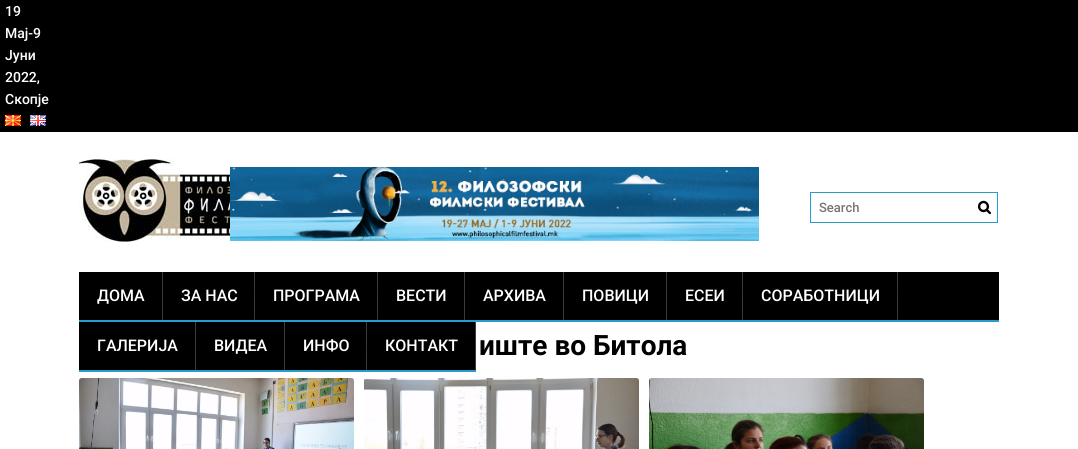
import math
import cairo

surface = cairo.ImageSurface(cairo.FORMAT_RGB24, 1078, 449)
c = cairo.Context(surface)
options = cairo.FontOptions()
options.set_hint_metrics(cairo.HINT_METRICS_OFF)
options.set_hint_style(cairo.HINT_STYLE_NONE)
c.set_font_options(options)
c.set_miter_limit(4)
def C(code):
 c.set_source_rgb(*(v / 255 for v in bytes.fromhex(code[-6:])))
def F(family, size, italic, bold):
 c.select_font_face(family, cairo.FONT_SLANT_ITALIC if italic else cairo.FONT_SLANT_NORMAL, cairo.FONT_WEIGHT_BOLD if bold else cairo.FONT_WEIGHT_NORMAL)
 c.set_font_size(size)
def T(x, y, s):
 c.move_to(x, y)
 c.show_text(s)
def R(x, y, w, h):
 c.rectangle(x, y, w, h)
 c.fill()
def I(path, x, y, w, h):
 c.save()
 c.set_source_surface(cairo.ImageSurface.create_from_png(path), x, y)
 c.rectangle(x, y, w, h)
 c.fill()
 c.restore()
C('ffffff')
c.paint()
C('000000')
R(0,0,1078,132)
F('Roboto Medium',14,0,0)
C('ffffff')
T(5,16,'19')
T(5,38,'Мај-9')
T(5,60,'Јуни')
T(5,82,'2022,')
T(5,104,'Скопје')
I('1.png',5,115,16,11)
I('2.png',30,115,16,11)
I('3.png',79,159,211,83)
I('4.png',230,167,529,74)
c.rectangle(810.5,192.5,187,30)
C('289dcc')
c.set_line_width(1)
c.stroke()
F('Roboto Medium',13,0,0)
C('757575')
T(819,212,'Search')
I('5.png',978,200,13,15)
C('000000')
R(898,272,101,48)
C('289dcc')
R(898,320,101,2)
C('000000')
R(79,272,83,48)
I('6.png',162,272,1,48)
C('289dcc')
R(79,320,819,2)
F('Roboto Medium',16,0,0)
C('ffffff')
T(97,301,'ДОМА')
C('000000')
R(163,272,91,48)
I('6.png',254,272,1,48)
C('ffffff')
T(181,301,'ЗА НАС')
C('000000')
R(255,272,122,48)
I('6.png',377,272,1,48)
C('ffffff')
T(273,301,'ПРОГРАМА')
C('000000')
R(378,272,86,48)
I('6.png',464,272,1,48)
C('ffffff')
T(396,301,'ВЕСТИ')
C('000000')
R(465,272,98,48)
I('6.png',563,272,1,48)
C('ffffff')
T(483,301,'АРХИВА')
C('000000')
R(564,272,102,48)
I('6.png',666,272,1,48)
C('ffffff')
T(582,301,'ПОВИЦИ')
C('000000')
R(667,272,75,48)
I('6.png',742,272,1,48)
C('ffffff')
T(685,301,'ЕСЕИ')
C('000000')
R(743,272,154,48)
I('6.png',897,272,1,48)
C('ffffff')
T(761,301,'СОРАБОТНИЦИ')
C('000000')
R(79,322,116,48)
I('6.png',195,322,1,48)
C('289dcc')
R(79,370,397,2)
C('ffffff')
T(97,351,'ГАЛЕРИЈА')
C('000000')
R(196,322,88,48)
I('6.png',284,322,1,48)
C('ffffff')
T(214,351,'ВИДЕА')
C('000000')
R(285,322,81,48)
I('6.png',366,322,1,48)
C('ffffff')
T(303,351,'ИНФО')
C('000000')
R(367,322,108,48)
I('6.png',475,322,1,48)
C('ffffff')
T(385,351,'КОНТАКТ')
F('Roboto',28,0,1)
C('000000')
T(479,355,'иште во Битола')
I('7.png',79,378,275,71)
I('8.png',364,378,275,71)
I('9.png',649,378,275,71)
surface.write_to_png('o.png')
